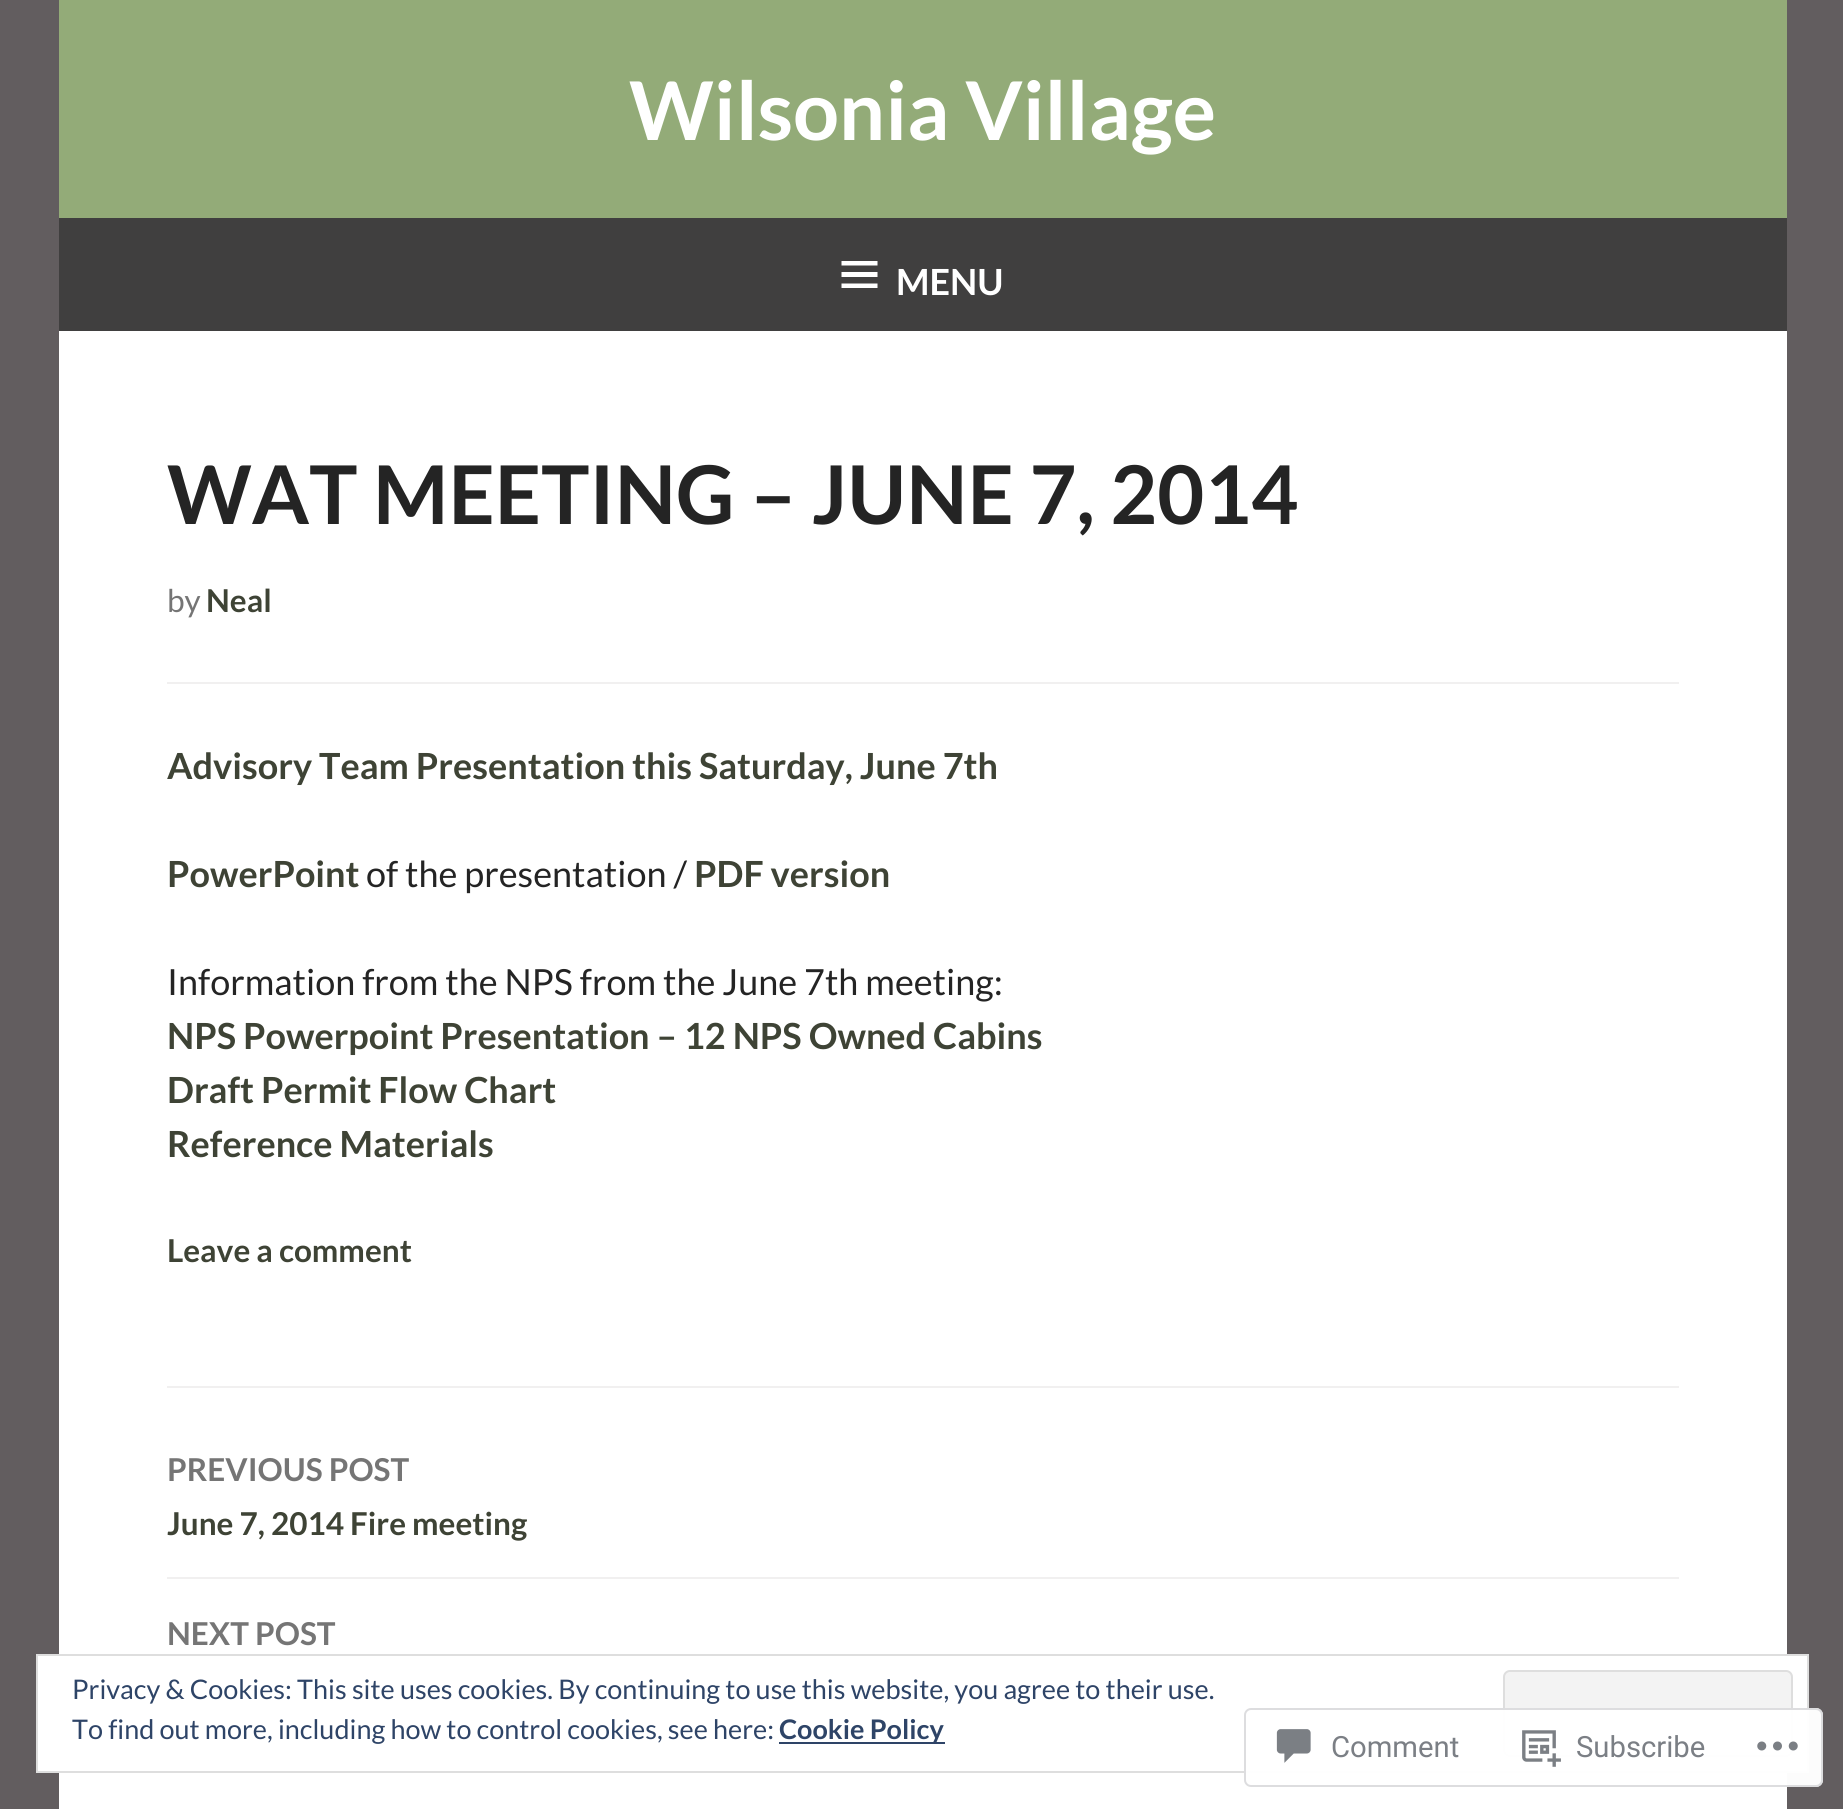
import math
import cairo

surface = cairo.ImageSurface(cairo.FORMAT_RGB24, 1843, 1809)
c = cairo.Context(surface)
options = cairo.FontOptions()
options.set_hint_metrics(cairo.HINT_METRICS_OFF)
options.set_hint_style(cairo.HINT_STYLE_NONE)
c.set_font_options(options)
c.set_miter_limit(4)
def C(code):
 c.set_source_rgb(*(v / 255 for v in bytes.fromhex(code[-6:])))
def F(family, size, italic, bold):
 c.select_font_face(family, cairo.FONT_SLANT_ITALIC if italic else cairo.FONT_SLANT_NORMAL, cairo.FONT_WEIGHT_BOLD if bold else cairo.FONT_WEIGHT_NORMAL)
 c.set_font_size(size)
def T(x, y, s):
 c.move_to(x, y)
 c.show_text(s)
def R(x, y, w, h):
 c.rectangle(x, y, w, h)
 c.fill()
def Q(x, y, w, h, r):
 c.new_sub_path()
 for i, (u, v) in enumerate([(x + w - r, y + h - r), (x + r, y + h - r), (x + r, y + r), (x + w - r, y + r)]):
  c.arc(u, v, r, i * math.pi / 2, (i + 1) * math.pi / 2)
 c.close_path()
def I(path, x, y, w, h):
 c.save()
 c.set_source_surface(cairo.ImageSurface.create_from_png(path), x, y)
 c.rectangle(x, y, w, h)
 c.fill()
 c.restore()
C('625d5f')
c.paint()
C('ffffff')
R(59,331,1728,1478)
C('93ab78')
R(59,0,1728,218)
F('Lato',81,0,1)
C('ffffff')
T(629,140,'Wilsonia Village')
C('403f3f')
R(59,218,1728,113)
C('ffffff')
c.new_path()
c.move_to(841.5,288)
c.line_to(841.5,283.5)
c.line_to(877.5,283.5)
c.line_to(877.5,288)
c.close_path()
c.move_to(841.5,261)
c.line_to(877.5,261)
c.line_to(877.5,265.5)
c.line_to(841.5,265.5)
c.close_path()
c.move_to(841.5,277)
c.line_to(841.5,272)
c.line_to(877.5,272)
c.line_to(877.5,277)
c.close_path()
c.fill()
F('Lato',36,0,1)
T(896,295,'MENU')
F('Lato',81,0,1)
C('242424')
T(167,524,'WAT MEETING – JUNE 7, 2014')
C('f1f0f0')
R(167,682,1512,2)
F('Lato',31.5,0,0)
C('757575')
T(167,612,'by')
F('Lato',31.5,0,1)
C('3e4335')
T(206,612,'Neal')
F('Lato',36,0,1)
T(167,779,'Advisory Team Presentation this Saturday, June 7th')
T(167,887,'PowerPoint')
F('Lato',36,0,0)
C('242424')
T(366,887,'of the presentation /')
F('Lato',36,0,1)
C('3e4335')
T(694,887,'PDF version')
F('Lato',36,0,0)
C('242424')
T(167,995,'Information from the NPS from the June 7th meeting:')
F('Lato',36,0,1)
C('3e4335')
T(167,1049,'NPS Powerpoint Presentation – 12 NPS Owned Cabins')
T(167,1103,'Draft Permit Flow Chart')
T(167,1157,'Reference Materials')
F('Lato',31.5,0,1)
T(167,1262,'Leave a comment')
C('f1f0f0')
R(167,1386,1512,2)
C('757575')
T(167,1481,'PREVIOUS POST')
C('3e4335')
T(167,1535,'June 7, 2014 Fire meeting')
C('f1f0f0')
R(167,1577,1512,2)
C('757575')
T(167,1645,'NEXT POST')
C('ffffff')
c.rectangle(37,1655,1771,117)
c.fill_preserve()
C('dedede')
c.stroke()
F('Lato',27,0,0)
C('2e4467')
T(72,1699,'Privacy & Cookies: This site uses cookies. By continuing to use this website, you agree to their use.')
C('f3f3f3')
Q(1504,1671,288,85,6)
c.fill_preserve()
C('dedede')
c.stroke()
C('2e4467')
T(72,1739,'To find out more, including how to control cookies, see here:')
R(779,1742,166,2)
F('Lato',27,0,1)
T(779,1739,'Cookie Policy')
c.set_source_rgba(1,1,1,0.98)
Q(1244,1708,579,79,7)
c.fill()
Q(1245,1709,577,77,6)
c.set_source_rgba(0.863,0.863,0.871,0.98)
c.stroke()
I('1.png',1276,1729,35,34)
F('Roboto',29.25,0,0)
C('7b7f85')
T(1331,1757,'Comment')
I('2.png',1522,1730,39,37)
T(1576,1757,'Subscribe')
I('3.png',1757,1741,41,10)
surface.write_to_png('o.png')
